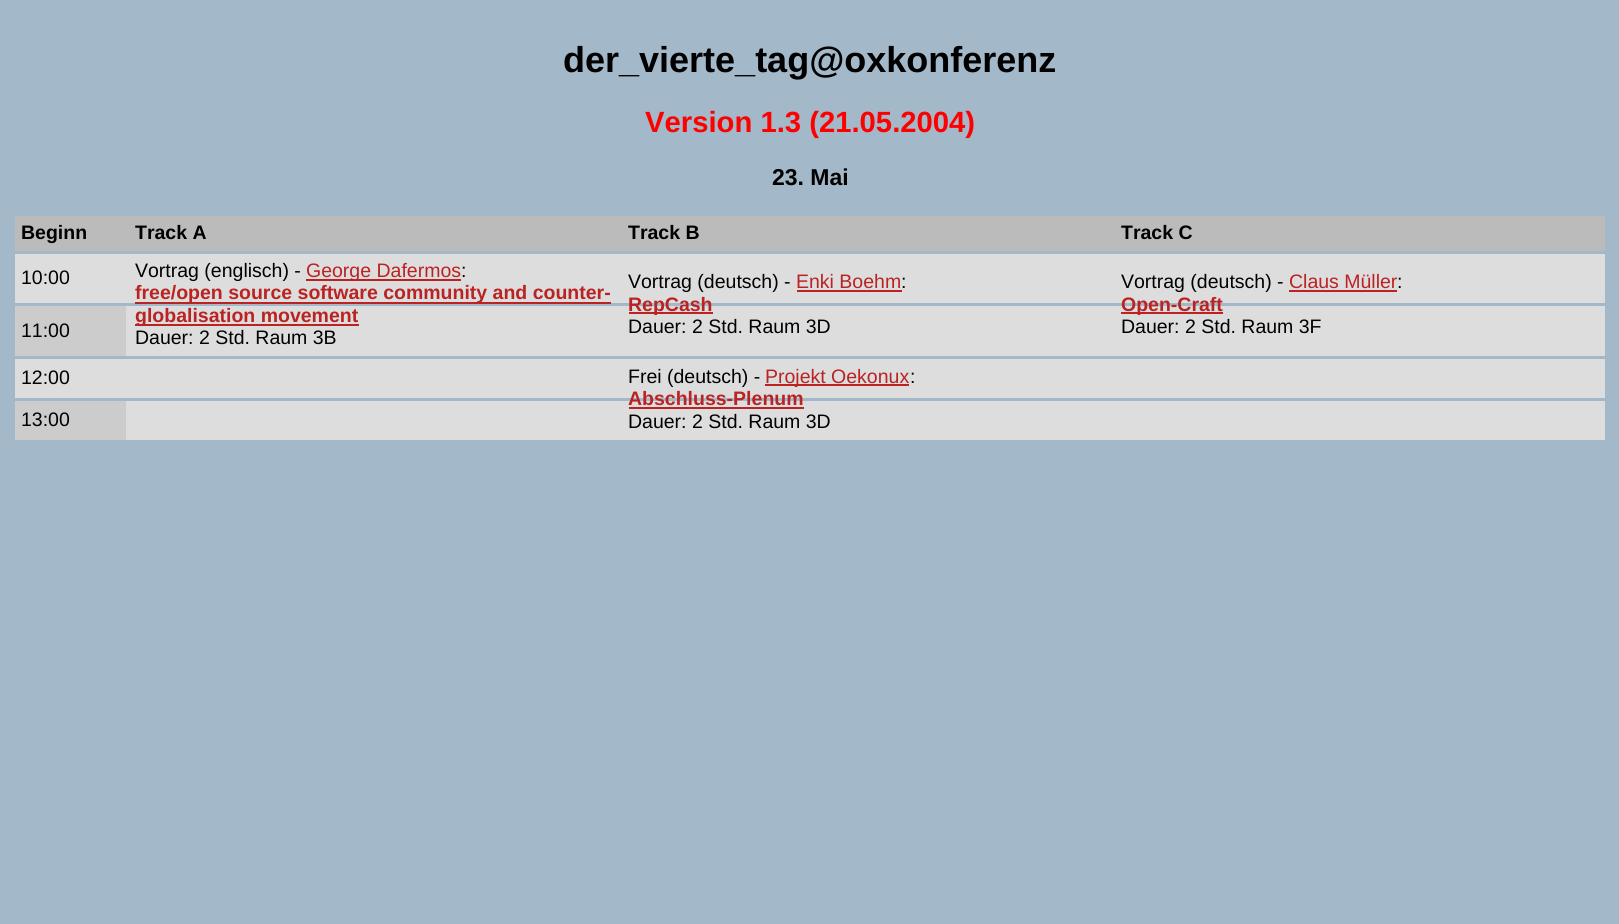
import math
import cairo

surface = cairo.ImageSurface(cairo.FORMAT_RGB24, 1619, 924)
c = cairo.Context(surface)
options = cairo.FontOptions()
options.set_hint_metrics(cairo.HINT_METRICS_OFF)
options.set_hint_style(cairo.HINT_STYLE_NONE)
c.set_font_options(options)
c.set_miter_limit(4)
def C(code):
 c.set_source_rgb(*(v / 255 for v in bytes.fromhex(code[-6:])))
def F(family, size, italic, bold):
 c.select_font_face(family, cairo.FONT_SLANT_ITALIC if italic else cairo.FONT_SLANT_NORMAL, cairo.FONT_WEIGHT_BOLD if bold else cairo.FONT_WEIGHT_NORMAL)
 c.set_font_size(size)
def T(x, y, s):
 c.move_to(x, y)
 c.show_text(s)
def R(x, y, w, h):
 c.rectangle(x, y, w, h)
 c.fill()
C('a3b8c9')
c.paint()
F('Liberation Sans',36,0,1)
C('000000')
T(563,72,'der_vierte_tag@oxkonferenz')
F('Liberation Sans',29.25,0,1)
C('ff0000')
T(645,132,'Version 1.3 (21.05.2004)')
F('Liberation Sans',23,0,1)
C('000000')
T(772,185,'23. Mai')
C('bbbbbb')
R(15,216,1590,35)
F('Liberation Sans',19.5,0,1)
C('000000')
T(21,239,'Beginn')
T(135,239,'Track A')
T(628,239,'Track B')
T(1121,239,'Track C')
C('dddddd')
R(15,254,1590,49)
F('Liberation Sans',19.5,0,0)
C('000000')
T(21,284,'10:00')
T(135,277,'Vortrag (englisch) -')
C('bb2222')
R(306,279,155,2)
T(306,277,'George Dafermos')
C('000000')
T(461,277,':')
C('bb2222')
R(135,302,476,2)
F('Liberation Sans',19.5,0,1)
T(135,299,'free/open source software community and counter-')
C('dddddd')
R(126,306,1479,50)
C('bb2222')
R(135,324,224,2)
T(135,322,'globalisation movement')
F('Liberation Sans',19.5,0,0)
C('000000')
T(135,344,'Dauer: 2 Std. Raum 3B')
T(628,288,'Vortrag (deutsch) -')
C('bb2222')
T(796,288,'Enki Boehm')
C('000000')
T(901,288,':')
C('bb2222')
R(797,290,105,2)
R(629,312,84,2)
F('Liberation Sans',19.5,0,1)
T(628,311,'RepCash')
F('Liberation Sans',19.5,0,0)
C('000000')
T(628,333,'Dauer: 2 Std. Raum 3D')
T(1121,288,'Vortrag (deutsch) -')
C('bb2222')
T(1289,288,'Claus Müller')
C('000000')
T(1397,288,':')
C('bb2222')
R(1289,290,108,2)
R(1121,312,102,2)
F('Liberation Sans',19.5,0,1)
T(1121,311,'Open-Craft')
F('Liberation Sans',19.5,0,0)
C('000000')
T(1121,333,'Dauer: 2 Std. Raum 3F')
C('cccccc')
R(15,306,111,50)
C('000000')
T(21,337,'11:00')
C('dddddd')
R(15,359,1590,39)
C('000000')
T(21,384,'12:00')
T(628,383,'Frei (deutsch) -')
C('bb2222')
R(765,384,144,2)
T(765,383,'Projekt Oekonux')
C('000000')
T(910,383,':')
C('dddddd')
R(126,401,1479,39)
F('Liberation Sans',19.5,0,1)
C('bb2222')
T(628,405,'Abschluss-Plenum')
R(629,407,175,2)
F('Liberation Sans',19.5,0,0)
C('000000')
T(628,428,'Dauer: 2 Std. Raum 3D')
C('cccccc')
R(15,401,111,39)
C('000000')
T(21,426,'13:00')
surface.write_to_png('o.png')
